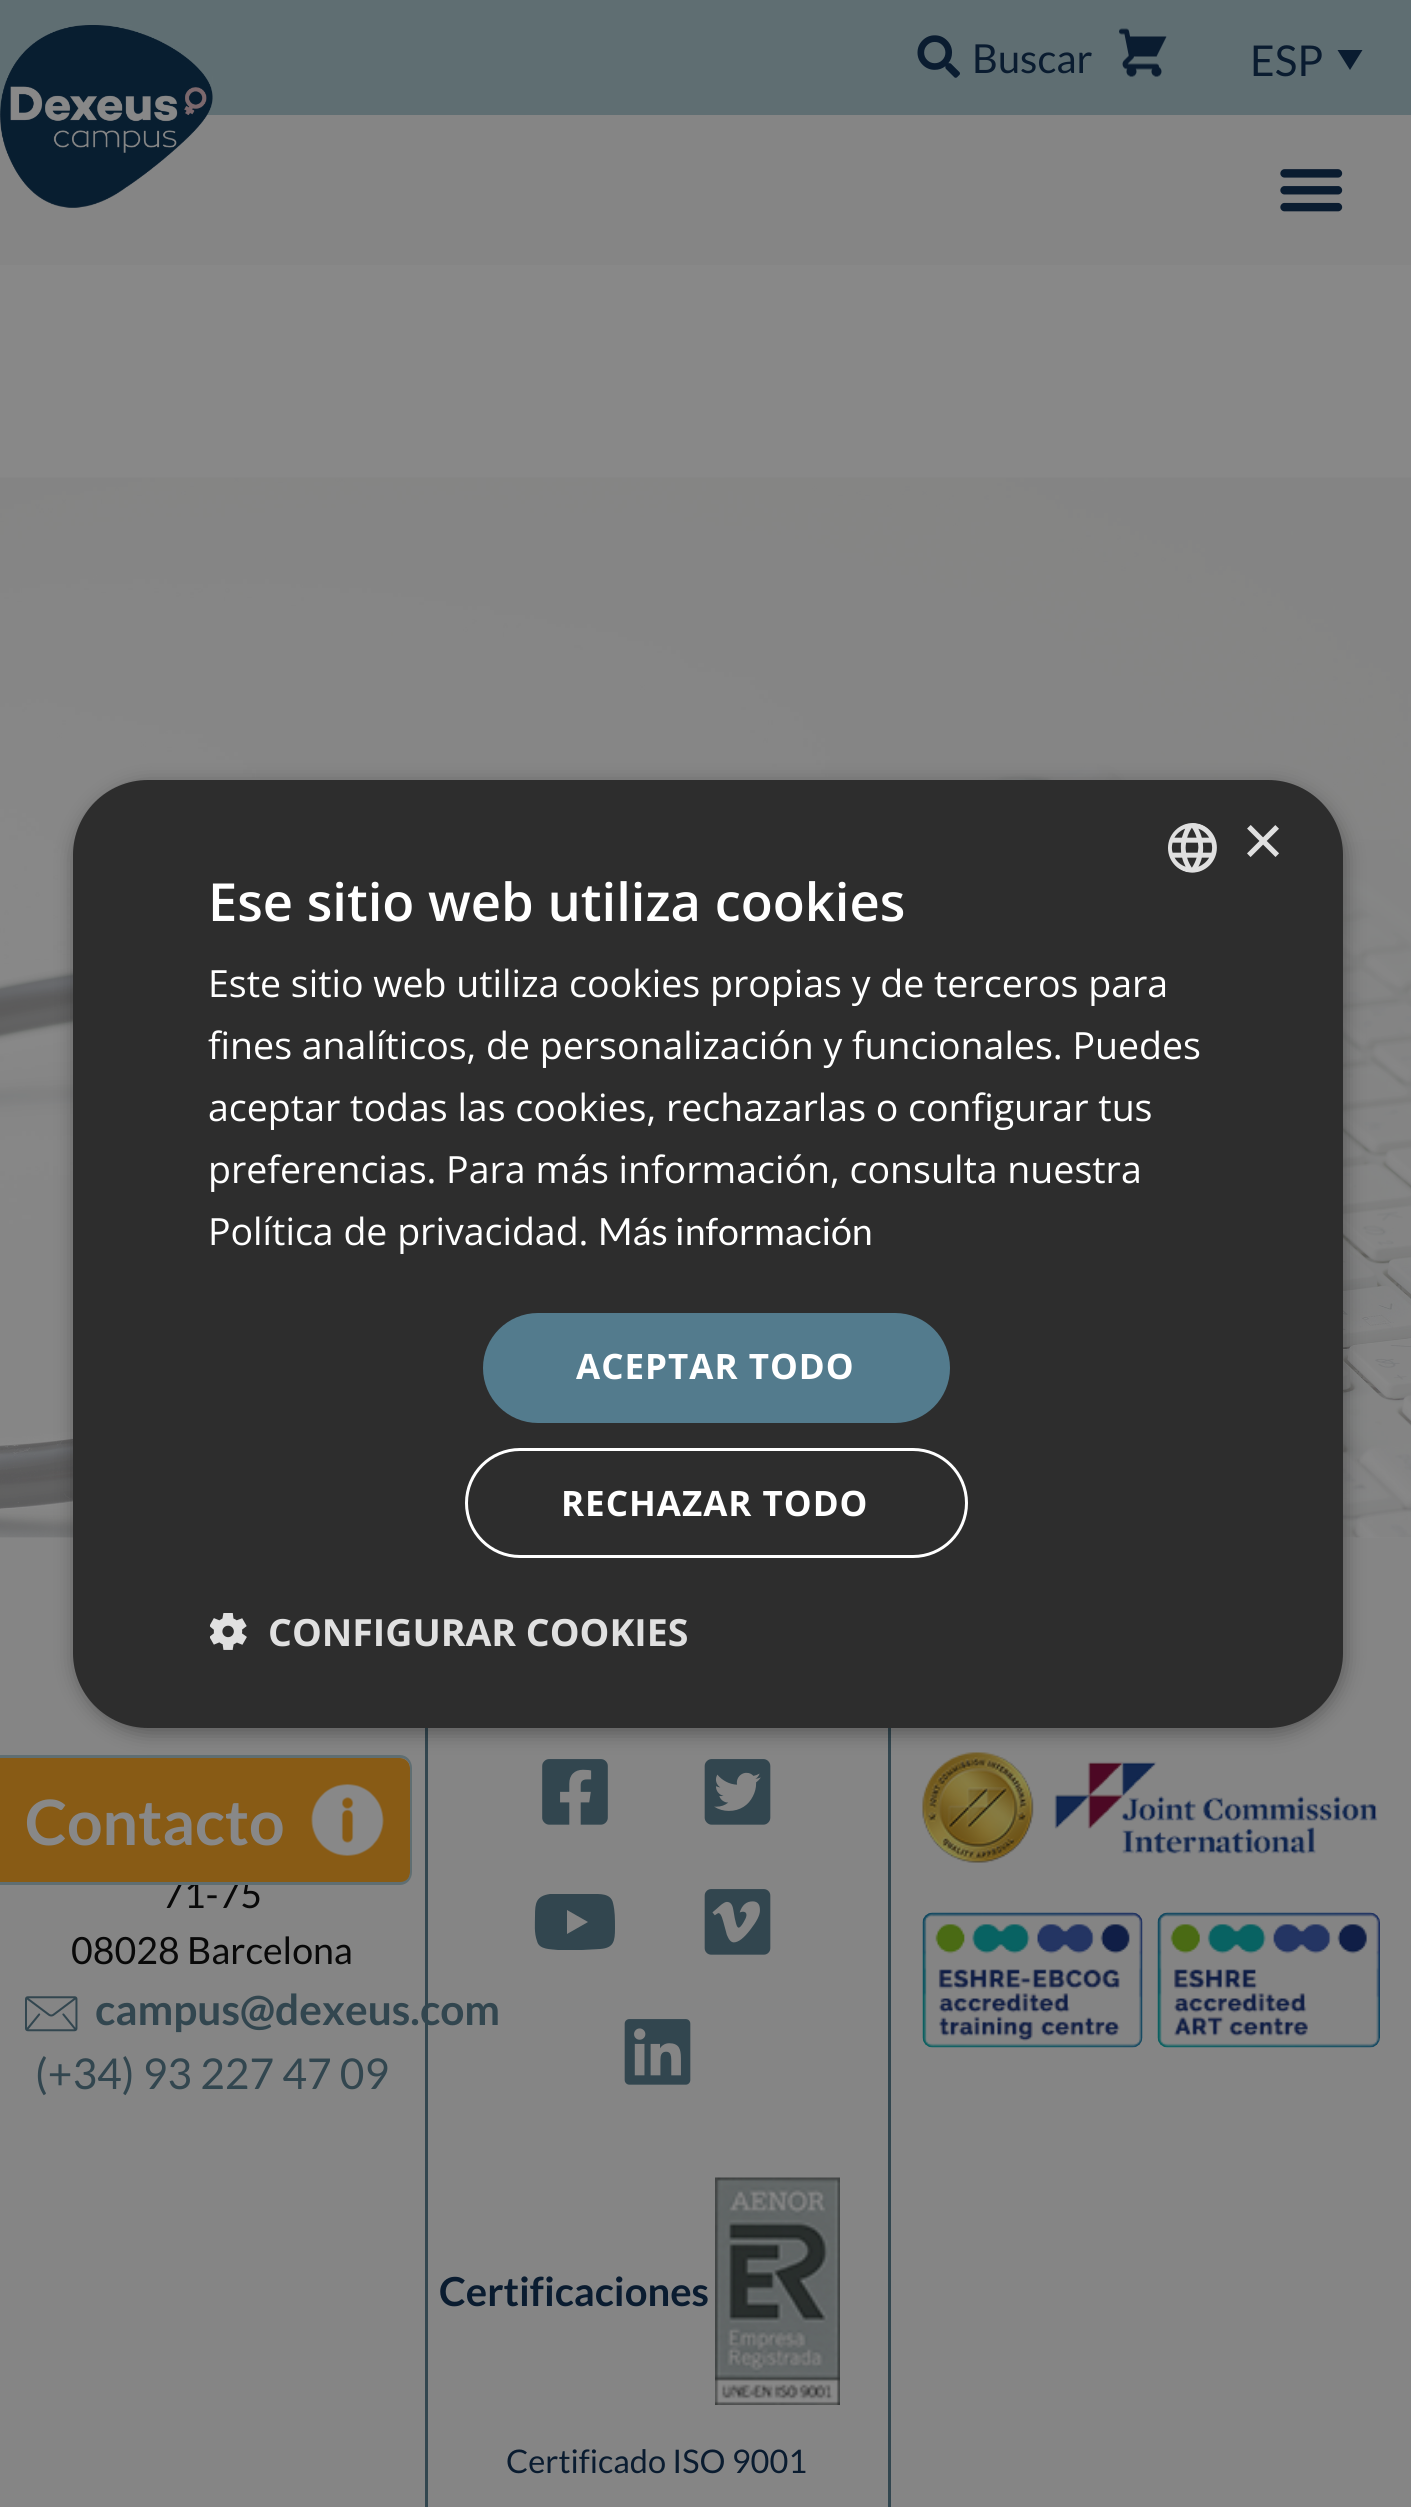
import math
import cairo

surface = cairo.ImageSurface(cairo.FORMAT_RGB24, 1411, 2507)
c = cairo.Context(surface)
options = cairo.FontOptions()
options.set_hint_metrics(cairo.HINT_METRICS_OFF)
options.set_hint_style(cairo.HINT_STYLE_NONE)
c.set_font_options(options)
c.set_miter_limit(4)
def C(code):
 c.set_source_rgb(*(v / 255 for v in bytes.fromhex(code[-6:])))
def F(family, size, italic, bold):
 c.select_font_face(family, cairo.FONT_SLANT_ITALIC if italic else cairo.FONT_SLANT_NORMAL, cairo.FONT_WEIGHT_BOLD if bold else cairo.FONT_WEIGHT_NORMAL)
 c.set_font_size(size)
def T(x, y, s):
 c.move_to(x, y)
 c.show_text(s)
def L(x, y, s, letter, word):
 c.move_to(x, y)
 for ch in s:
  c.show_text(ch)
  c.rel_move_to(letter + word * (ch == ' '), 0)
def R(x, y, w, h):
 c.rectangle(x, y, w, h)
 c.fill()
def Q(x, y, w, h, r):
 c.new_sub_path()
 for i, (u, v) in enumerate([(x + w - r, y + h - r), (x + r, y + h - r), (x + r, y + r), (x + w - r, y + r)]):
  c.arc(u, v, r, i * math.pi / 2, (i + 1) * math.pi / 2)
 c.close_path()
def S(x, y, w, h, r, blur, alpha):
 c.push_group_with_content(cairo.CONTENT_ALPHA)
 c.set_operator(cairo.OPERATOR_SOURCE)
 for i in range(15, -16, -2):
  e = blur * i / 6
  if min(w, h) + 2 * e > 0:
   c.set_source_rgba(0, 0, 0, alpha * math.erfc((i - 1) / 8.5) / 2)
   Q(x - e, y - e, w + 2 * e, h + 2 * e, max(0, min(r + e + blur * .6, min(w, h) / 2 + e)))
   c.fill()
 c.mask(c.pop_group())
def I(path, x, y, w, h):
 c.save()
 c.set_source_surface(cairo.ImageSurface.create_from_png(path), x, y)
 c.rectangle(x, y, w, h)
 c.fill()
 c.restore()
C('888888')
c.paint()
C('5f6e72')
R(0,0,1411,115)
C('858585')
R(0,115,1411,150)
I('1.png',0,25,213,183)
I('2.png',917,35,43,43)
F('Lato',40,0,0)
C('0a1c30')
T(972,73,'Buscar')
I('3.png',1119,28,48,49)
F('Lato',42.5,0,0)
T(1250,76,'ESP')
c.new_path()
c.move_to(1337.5,50)
c.line_to(1362.5,50)
c.line_to(1350,70)
c.close_path()
c.fill()
I('4.png',1280,169,63,43)
I('5.png',0,477,1411,1061)
C('858585')
R(0,1538,1411,969)
F('Lato',37.5,0,0)
C('090909')
T(162,1908,'71-75')
C('885b15')
c.new_path()
c.move_to(0,1758)
c.line_to(400,1758)
c.curve_to(405.5,1758,410,1762.5,410,1768)
c.line_to(410,1873)
c.curve_to(410,1878.5,405.5,1883,400,1883)
c.line_to(0,1883)
c.close_path()
c.fill()
C('5f6e72')
c.set_fill_rule(cairo.FILL_RULE_EVEN_ODD)
c.new_path()
c.move_to(0,1755)
c.line_to(400,1755)
c.curve_to(407,1755,412,1761,412,1768)
c.line_to(412,1872)
c.curve_to(412,1879,407,1885,400,1885)
c.line_to(0,1885)
c.close_path()
c.move_to(0,1758)
c.line_to(400,1758)
c.curve_to(406,1758,410,1762,410,1768)
c.line_to(410,1872)
c.curve_to(410,1878,406,1882,400,1882)
c.line_to(0,1882)
c.close_path()
c.fill()
I('10.png',922,1752,456,111)
C('32464f')
R(888,1728,3,779)
R(425,1728,3,779)
I('13.png',542,1759,66,66)
I('14.png',704,1759,67,66)
C('000000')
S(75,785,1270,948,75,10,.35)
C('2d2d2d')
Q(73,780,1270,948,75)
c.fill()
I('6.png',1168,823,49,50)
F('Liberation Sans',72,0,0)
C('e0e0e0')
T(1242,865,'×')
F('Open Sans SemiBold',52.5,0,0)
C('ffffff')
T(208,921,'Ese sitio web utiliza cookies')
F('Open Sans',37.5,0,0)
T(208,997,'Este sitio web utiliza cookies propias y de terceros para')
T(208,1059,'fines analíticos, de personalización y funcionales. Puedes')
T(208,1121,'aceptar todas las cookies, rechazarlas o configurar tus')
T(208,1183,'preferencias. Para más información, consulta nuestra')
T(208,1245,'Política de privacidad.')
F('Lato',37.5,0,0)
T(598,1245,'Más información')
C('537b8d')
Q(483,1313,467,110,55)
c.fill()
F('Open Sans',35,0,1)
C('ffffff')
L(576,1379,'ACEPTAR TODO',1,0)
Q(466.5,1449.5,500,107,53.5)
c.set_line_width(3)
c.stroke()
L(561,1516,'RECHAZAR TODO',1,0)
I('7.png',210,1613,37,37)
F('Open Sans',37.5,0,1)
C('e0e0e0')
T(268,1646,'CONFIGURAR COOKIES')
F('Lato',62.5,0,1)
C('888888')
T(25,1845,'Contacto')
I('8.png',311,1784,73,72)
F('Lato',37.5,0,0)
C('090909')
T(71,1964,'08028 Barcelona')
I('9.png',25,1996,53,36)
F('Lato',42.5,0,1)
C('32464f')
T(95,2025,'campus@dexeus.com')
F('Lato',42.5,0,0)
T(35,2089,'(+34) 93 227 47 09')
I('11.png',922,1912,221,136)
I('12.png',1157,1912,223,136)
c.set_fill_rule(cairo.FILL_RULE_WINDING)
c.new_path()
c.move_to(613,1903)
c.curve_to(615,1911,615,1919,615,1928)
c.curve_to(615,1941,614,1948,600,1949)
c.line_to(582,1950)
c.line_to(558,1950)
c.curve_to(551,1949,539,1950,537,1941)
c.curve_to(534,1933,535,1924,535,1916)
c.curve_to(535,1903,536,1896,550,1894)
c.line_to(568,1894)
c.line_to(592,1894)
c.curve_to(599,1894,611,1893,613,1903)
c.close_path()
c.move_to(567,1934)
c.line_to(588,1922)
c.line_to(567,1910)
c.close_path()
c.fill()
I('15.png',704,1889,67,66)
I('16.png',624,2019,67,66)
F('Lato',40,0,1)
C('0a1c30')
T(439,2306,'Certificaciones')
I('17.png',715,2177,125,228)
F('Lato',32.5,0,0)
T(506,2473,'Certificado ISO 9001')
surface.write_to_png('o.png')
